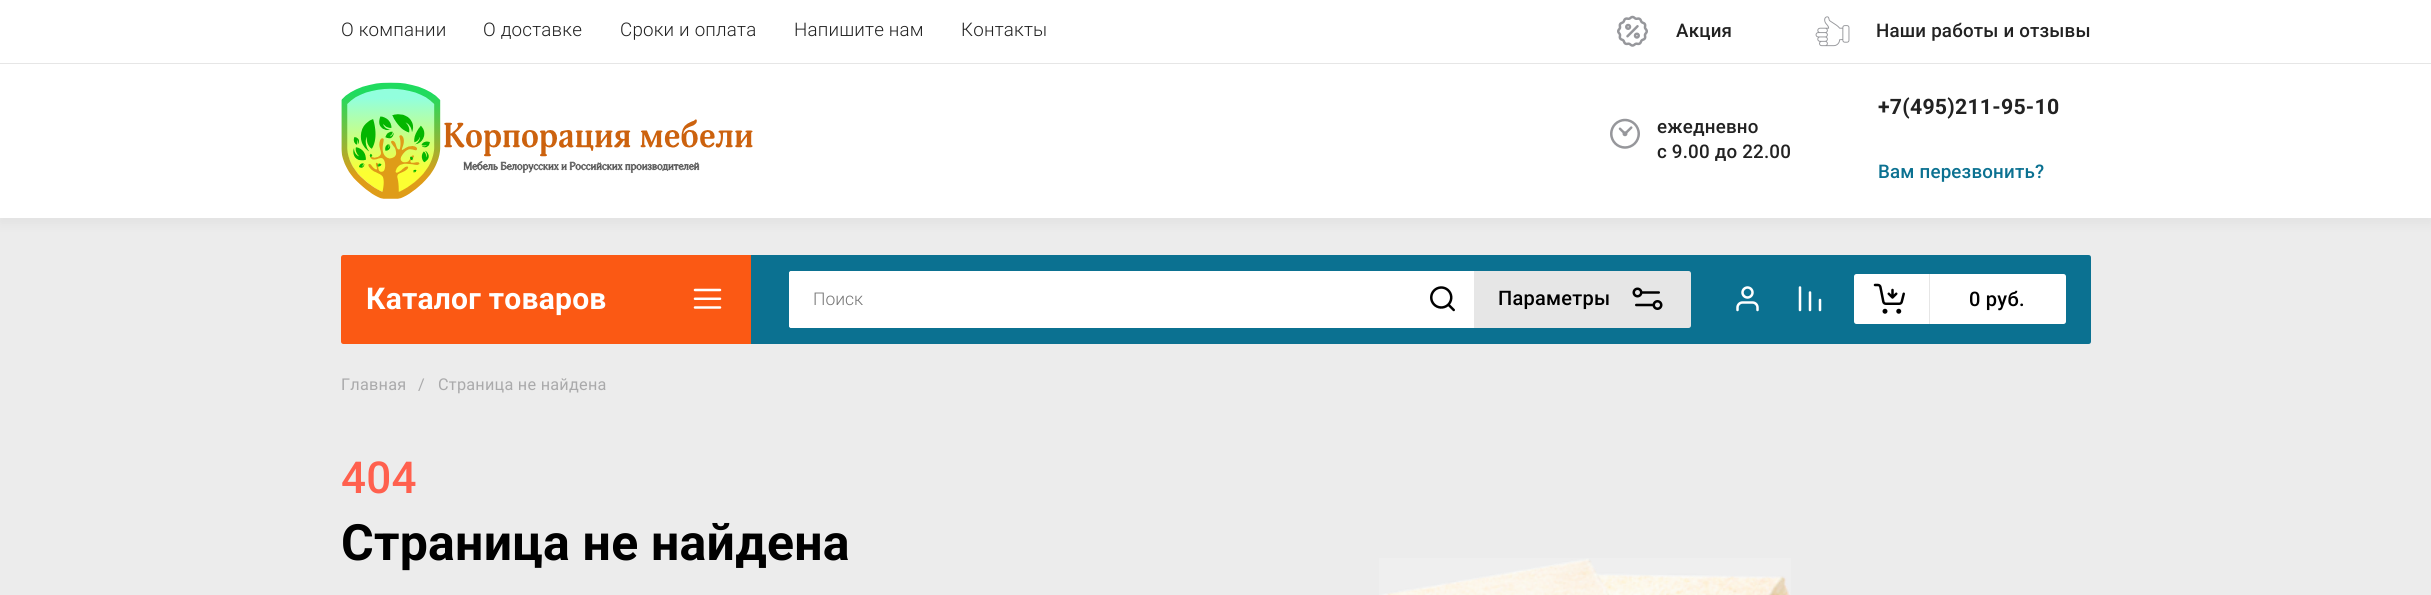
import math
import cairo

surface = cairo.ImageSurface(cairo.FORMAT_RGB24, 2431, 595)
c = cairo.Context(surface)
options = cairo.FontOptions()
options.set_hint_metrics(cairo.HINT_METRICS_OFF)
options.set_hint_style(cairo.HINT_STYLE_NONE)
c.set_font_options(options)
c.set_miter_limit(4)
def C(code):
 c.set_source_rgb(*(v / 255 for v in bytes.fromhex(code[-6:])))
def F(family, size, italic, bold):
 c.select_font_face(family, cairo.FONT_SLANT_ITALIC if italic else cairo.FONT_SLANT_NORMAL, cairo.FONT_WEIGHT_BOLD if bold else cairo.FONT_WEIGHT_NORMAL)
 c.set_font_size(size)
def T(x, y, s):
 c.move_to(x, y)
 c.show_text(s)
def L(x, y, s, letter, word):
 c.move_to(x, y)
 for ch in s:
  c.show_text(ch)
  c.rel_move_to(letter + word * (ch == ' '), 0)
def R(x, y, w, h):
 c.rectangle(x, y, w, h)
 c.fill()
def Q(x, y, w, h, r):
 c.new_sub_path()
 for i, (u, v) in enumerate([(x + w - r, y + h - r), (x + r, y + h - r), (x + r, y + r), (x + w - r, y + r)]):
  c.arc(u, v, r, i * math.pi / 2, (i + 1) * math.pi / 2)
 c.close_path()
def S(x, y, w, h, r, blur, alpha):
 c.push_group_with_content(cairo.CONTENT_ALPHA)
 c.set_operator(cairo.OPERATOR_SOURCE)
 for i in range(15, -16, -2):
  e = blur * i / 6
  if min(w, h) + 2 * e > 0:
   c.set_source_rgba(0, 0, 0, alpha * math.erfc((i - 1) / 8.5) / 2)
   Q(x - e, y - e, w + 2 * e, h + 2 * e, max(0, min(r + e + blur * .6, min(w, h) / 2 + e)))
   c.fill()
 c.mask(c.pop_group())
def I(path, x, y, w, h):
 c.save()
 c.set_source_surface(cairo.ImageSurface.create_from_png(path), x, y)
 c.rectangle(x, y, w, h)
 c.fill()
 c.restore()
C('ececec')
c.paint()
C('000000')
S(0,5,2431,218,0,6,.05)
C('ffffff')
R(0,0,2431,218)
F('Roboto Light',18.75,0,0)
C('222222')
L(341,36,'О компании',.2,0)
L(483,36,'О доставке',.2,0)
L(620,36,'Сроки и оплата',.2,0)
L(794,36,'Напишите нам',.2,0)
L(961,36,'Контакты',.2,0)
I('1.png',1617,15,31,32)
F('Roboto Medium',18.75,0,0)
L(1676,37,'Акция',.2,0)
I('2.png',1815,16,35,31)
L(1876,37,'Наши работы и отзывы',.2,0)
C('e6e6e6')
R(0,63,2431,1)
I('3.png',341,82,412,117)
I('4.png',1610,118,30,31)
C('222222')
L(1657,133,'ежедневно',.2,0)
L(1657,158,'с 9.00 до 22.00',.2,0)
F('Roboto',21.25,0,1)
L(1878,114,'+7(495)211-95-10',.25,0)
F('Roboto Medium',18.75,0,0)
C('0b7191')
L(1878,178,'Вам перезвонить?',.2,0)
C('fb5914')
c.new_path()
c.move_to(343.5,255)
c.line_to(751,255)
c.line_to(751,344)
c.line_to(343.5,344)
c.curve_to(342,344,341,343,341,341.5)
c.line_to(341,257.5)
c.curve_to(341,256,342,255,343.5,255)
c.close_path()
c.fill()
F('Roboto',30,0,1)
C('ffffff')
L(366,309,'Каталог товаров',.25,0)
I('5.png',693,288,29,21)
C('0b7191')
c.new_path()
c.move_to(751,255)
c.line_to(2088.5,255)
c.curve_to(2090,255,2091,256,2091,257.5)
c.line_to(2091,341.5)
c.curve_to(2091,343,2090,344,2088.5,344)
c.line_to(751,344)
c.close_path()
c.fill()
C('ffffff')
Q(789,271,902,57,2.5)
c.fill()
c.new_path()
c.move_to(791.5,271)
c.line_to(1411,271)
c.line_to(1411,328)
c.line_to(791.5,328)
c.curve_to(790,328,789,327,789,325.5)
c.line_to(789,273.5)
c.curve_to(789,272,790,271,791.5,271)
c.close_path()
c.fill()
F('Roboto Light',17.5,0,0)
C('757575')
T(813,305,'Поиск')
I('6.png',1430,286,25,26)
c.set_source_rgba(0,0,0,0.1)
c.new_path()
c.move_to(1474,271)
c.line_to(1688.5,271)
c.curve_to(1690,271,1691,272,1691,273.5)
c.line_to(1691,325.5)
c.curve_to(1691,327,1690,328,1688.5,328)
c.line_to(1474,328)
c.close_path()
c.fill()
F('Roboto Medium',20,0,0)
C('000000')
L(1498,305,'Параметры',.25,0)
I('7.png',1632,287,31,23)
I('8.png',1736,286,23,26)
I('9.png',1798,286,24,26)
C('ffffff')
Q(1854,274,212,50,2.5)
c.fill()
I('10.png',1873,283,32,31)
C('e6e6e6')
R(1929,274,1,50)
C('000000')
L(1969,306,'0 руб.',.25,0)
F('Roboto',16.25,0,0)
C('aaaaab')
L(341,390,'Главная',.25,0)
L(418,390,'/',.25,0)
L(438,390,'Страница не найдена',.25,0)
F('Roboto Medium',44,0,0)
C('ff604e')
L(341,493,'404',.25,0)
F('Roboto',50,0,1)
C('000000')
L(341,560,'Страница не найдена',.25,0)
I('11.png',1379,558,412,37)
surface.write_to_png('o.png')
